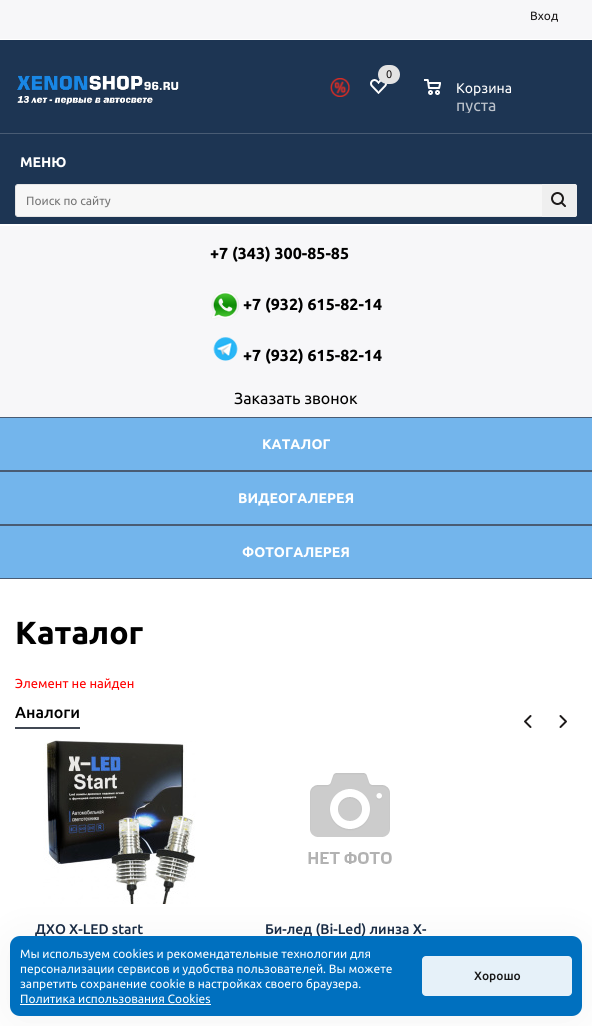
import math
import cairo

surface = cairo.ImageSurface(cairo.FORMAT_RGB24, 592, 1026)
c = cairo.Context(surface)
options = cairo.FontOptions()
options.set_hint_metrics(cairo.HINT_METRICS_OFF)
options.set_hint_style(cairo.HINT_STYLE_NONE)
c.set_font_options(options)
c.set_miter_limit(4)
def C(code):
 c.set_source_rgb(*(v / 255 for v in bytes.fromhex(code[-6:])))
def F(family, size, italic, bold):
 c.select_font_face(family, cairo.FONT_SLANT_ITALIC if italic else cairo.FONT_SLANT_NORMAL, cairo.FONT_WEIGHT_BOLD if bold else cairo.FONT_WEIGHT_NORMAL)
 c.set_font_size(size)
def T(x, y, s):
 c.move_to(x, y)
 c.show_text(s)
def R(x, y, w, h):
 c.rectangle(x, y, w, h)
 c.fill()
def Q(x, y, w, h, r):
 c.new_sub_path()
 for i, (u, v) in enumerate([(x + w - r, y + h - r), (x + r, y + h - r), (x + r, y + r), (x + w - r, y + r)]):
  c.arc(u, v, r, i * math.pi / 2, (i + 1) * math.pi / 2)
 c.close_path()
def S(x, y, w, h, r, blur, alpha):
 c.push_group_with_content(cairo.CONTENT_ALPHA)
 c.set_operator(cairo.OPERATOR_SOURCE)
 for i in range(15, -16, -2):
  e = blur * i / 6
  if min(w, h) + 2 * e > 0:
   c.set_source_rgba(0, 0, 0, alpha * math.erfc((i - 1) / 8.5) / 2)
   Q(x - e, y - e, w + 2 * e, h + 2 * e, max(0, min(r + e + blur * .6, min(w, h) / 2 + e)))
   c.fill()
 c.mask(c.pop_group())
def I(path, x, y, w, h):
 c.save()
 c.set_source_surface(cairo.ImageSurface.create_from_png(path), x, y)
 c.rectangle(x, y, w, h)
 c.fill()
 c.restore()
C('ffffff')
c.paint()
C('f7f7f9')
R(0,0,592,39)
F('Ubuntu',12,0,0)
C('1d1a1a')
T(530,20,'Вход')
C('1d3553')
R(0,40,592,93)
I('1.png',17,75,162,30)
I('2.png',330,78,20,19)
I('3.png',370,79,17,15)
C('e3e3e3')
Q(378,65,22,19,9.5)
c.fill()
F('Ubuntu',11,0,0)
C('1d1a1a')
T(386,78,'0')
I('4.png',424,79,17,16)
F('Ubuntu',14,0,0)
C('ffffff')
T(456,93,'Корзина')
c.save()
c.rectangle(456,97,56,16)
c.clip()
F('Ubuntu',16,0,0)
C('bbc2cb')
T(456,111,'пуста')
c.restore()
C('1d3553')
R(0,134,592,90)
C('495c74')
R(0,133,592,1)
F('Ubuntu',14,0,1)
C('ffffff')
T(20,167,'МЕНЮ')
C('f7f7f7')
Q(15.5,184.5,561,32,2.5)
c.fill_preserve()
C('e5e5e5')
c.set_line_width(1)
c.stroke()
F('Ubuntu',12,0,0)
C('757575')
T(26,205,'Поиск по сайту')
C('efefef')
c.new_path()
c.move_to(542,184)
c.line_to(575,184)
c.curve_to(576,184,577,185,577,186)
c.line_to(577,215)
c.curve_to(577,216,576,217,575,217)
c.line_to(542,217)
c.close_path()
c.fill()
I('5.png',551,192,15,15)
C('f7f7f9')
R(0,226,592,191)
F('Ubuntu',16,0,1)
C('000000')
T(210,259,'+7 (343) 300-85-85')
I('6.png',211,291,28,28)
T(243,310,'+7 (932) 615-82-14')
I('7.png',213,337,25,24)
T(243,361,'+7 (932) 615-82-14')
F('Ubuntu',16,0,0)
T(234,404,'Заказать звонок')
C('73b5ec')
R(0,418,592,52)
C('495c74')
R(0,417,592,1)
R(0,470,592,2)
F('Ubuntu',14,0,1)
C('ffffff')
T(262,449,'КАТАЛОГ')
C('73b5ec')
R(0,472,592,52)
C('495c74')
R(0,524,592,2)
C('ffffff')
T(238,503,'ВИДЕОГАЛЕРЕЯ')
C('73b5ec')
R(0,526,592,52)
C('495c74')
R(0,578,592,1)
C('ffffff')
T(242,557,'ФОТОГАЛЕРЕЯ')
F('Ubuntu',32,0,1)
C('000000')
T(15,644,'Каталог')
F('Ubuntu',13,0,0)
C('ff0000')
T(15,688,'Элемент не найден')
C('414853')
R(15,727,65,2)
F('Ubuntu Medium',16,0,0)
C('000000')
T(15,718,'Аналоги')
I('8.png',524,715,8,13)
I('9.png',559,715,8,13)
I('10.png',43,740,153,164)
F('Ubuntu Medium',14,0,0)
C('182b44')
T(35,934,'ДХО X-LED start')
I('11.png',308,773,84,91)
T(265,934,'Би-лед (Bi-Led) линза X-')
C('000000')
S(10,940,572,80,10,22,.05)
C('0070bf')
Q(10,936,572,80,10)
c.fill()
F('Ubuntu',12,0,0)
C('ffffff')
T(20,958,'Мы используем cookies и рекомендательные технологии для')
T(20,973,'персонализации сервисов и удобства пользователей. Вы можете')
T(20,988,'запретить сохранение cookie в настройках своего браузера.')
T(20,1003,'Политика использования Cookies')
R(20,1004,191,1)
C('e6f1f9')
Q(422,956,150,40,4)
c.fill()
F('Ubuntu Medium',12,0,0)
C('171717')
T(474,980,'Хорошо')
surface.write_to_png('o.png')
